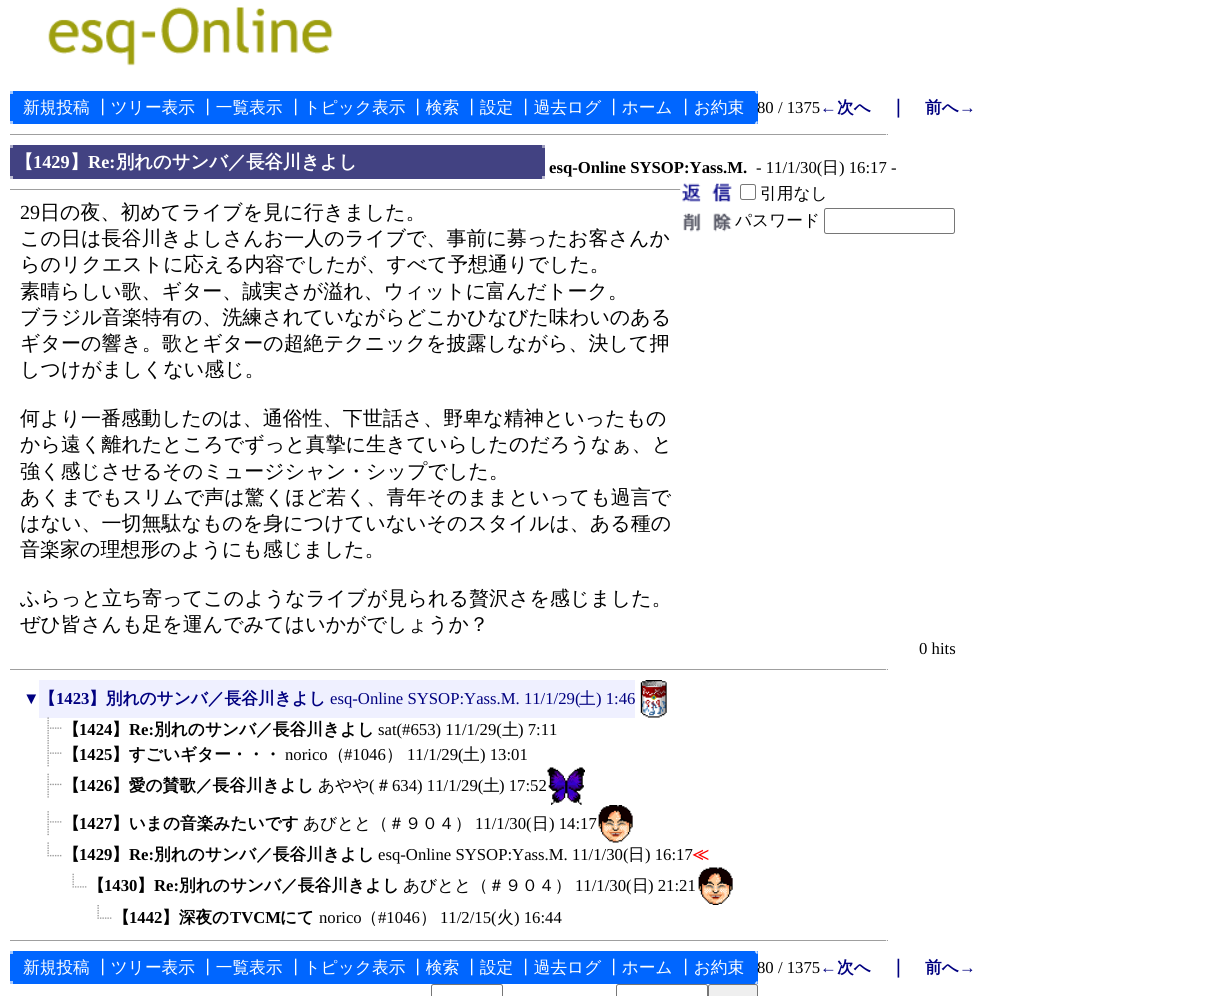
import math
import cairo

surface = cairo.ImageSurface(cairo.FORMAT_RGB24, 1223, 996)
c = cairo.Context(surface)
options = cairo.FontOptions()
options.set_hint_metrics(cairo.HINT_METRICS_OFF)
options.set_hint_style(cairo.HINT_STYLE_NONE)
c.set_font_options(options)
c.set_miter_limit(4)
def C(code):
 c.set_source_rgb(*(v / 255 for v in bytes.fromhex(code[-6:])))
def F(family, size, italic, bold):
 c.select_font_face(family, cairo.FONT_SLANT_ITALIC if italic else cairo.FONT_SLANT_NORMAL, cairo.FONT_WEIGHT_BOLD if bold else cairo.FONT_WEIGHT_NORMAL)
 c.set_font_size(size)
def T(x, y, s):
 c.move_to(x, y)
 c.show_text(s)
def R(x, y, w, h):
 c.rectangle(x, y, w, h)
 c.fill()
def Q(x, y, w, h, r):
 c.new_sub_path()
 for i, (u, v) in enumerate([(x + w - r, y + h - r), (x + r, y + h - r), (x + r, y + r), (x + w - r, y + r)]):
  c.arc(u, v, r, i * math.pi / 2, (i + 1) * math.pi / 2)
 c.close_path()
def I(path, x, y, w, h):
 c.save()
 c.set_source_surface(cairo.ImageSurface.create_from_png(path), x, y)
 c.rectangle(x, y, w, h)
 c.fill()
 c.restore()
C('ffffff')
c.paint()
I('1.png',48,7,285,59)
C('0066ff')
R(10,91,748,33)
C('a7caff')
R(10,91,3,3)
I('2.png',754,91,4,3)
F('WenQuanYi Zen Hei Medium',16.7,0,0)
C('ffffff')
T(23,113,'新規投稿')
T(94,113,'┃ツリー表示')
T(199,113,'┃一覧表示')
T(287,113,'┃トピック表示')
T(409,113,'┃検索')
T(463,113,'┃設定')
T(517,113,'┃過去ログ')
T(605,113,'┃ホーム')
T(677,113,'┃お約束')
C('a7caff')
R(10,121,3,3)
I('3.png',754,121,4,3)
F('Liberation Serif',16.7,0,0)
C('000000')
T(757,113,'80 / 1375')
F('Liberation Serif',16.7,0,1)
C('000080')
T(820,113,'←')
F('WenQuanYi Zen Hei',16.7,0,1)
T(837,113,'次へ')
F('WenQuanYi Zen Hei',18.3,0,1)
T(889,113,'｜')
F('WenQuanYi Zen Hei',16.7,0,1)
T(925,113,'前へ')
F('Liberation Serif',16.7,0,1)
T(959,113,'→')
C('9f9f9f')
R(10,134,878,1)
C('eeeeee')
R(886,134,1,1)
C('424282')
R(10,145,535,34)
C('a5a5c3')
R(10,145,3,3)
C('9d9dbe')
R(542,145,3,3)
F('WenQuanYi Zen Hei',18.3,0,1)
C('ffffff')
T(15,168,'【')
F('Liberation Serif',18.3,0,1)
T(33,168,'1429')
F('WenQuanYi Zen Hei',18.3,0,1)
T(70,168,'】')
F('Liberation Serif',18.3,0,1)
T(88,168,'Re:')
F('WenQuanYi Zen Hei',18.3,0,1)
T(116,168,'別れのサンバ／長谷川きよし')
C('bebed4')
R(10,176,3,3)
C('b8b8d0')
R(542,176,3,3)
F('Liberation Serif',16.7,0,1)
C('000000')
T(549,173,'esq-Online SYSOP:Yass.M.')
F('Liberation Serif',16.7,0,0)
T(756,173,'- 11/1/30(')
F('WenQuanYi Zen Hei Medium',16.7,0,0)
T(822,173,'日')
F('Liberation Serif',16.7,0,0)
T(839,173,') 16:17 -')
F('Liberation Serif',20,0,0)
T(20,219,'29')
F('WenQuanYi Zen Hei Medium',20,0,0)
T(40,219,'日の夜、初めてライブを見に行きました。')
T(20,245,'この日は長谷川きよしさんお一人のライブで、事前に募ったお客さんか')
T(20,271,'らのリクエストに応える内容でしたが、すべて予想通りでした。')
T(20,298,'素晴らしい歌、ギター、誠実さが溢れ、ウィットに富んだトーク。')
T(20,324,'ブラジル音楽特有の、洗練されていながらどこかひなびた味わいのある')
T(20,350,'ギターの響き。歌とギターの超絶テクニックを披露しながら、決して押')
T(20,376,'しつけがましくない感じ。')
T(20,425,'何より一番感動したのは、通俗性、下世話さ、野卑な精神といったもの')
T(20,451,'から遠く離れたところでずっと真摯に生きていらしたのだろうなぁ、と')
T(20,478,'強く感じさせるそのミュージシャン・シップでした。')
T(20,504,'あくまでもスリムで声は驚くほど若く、青年そのままといっても過言で')
T(20,530,'はない、一切無駄なものを身につけていないそのスタイルは、ある種の')
T(20,556,'音楽家の理想形のようにも感じました。')
T(20,605,'ふらっと立ち寄ってこのようなライブが見られる贅沢さを感じました。')
T(20,631,'ぜひ皆さんも足を運んでみてはいかがでしょうか？')
C('9f9f9f')
R(10,189,671,1)
C('eeeeee')
R(680,189,1,1)
I('4.png',682,183,50,19)
Q(740.5,184.5,15,15,2)
C('767676')
c.set_line_width(1)
c.stroke()
F('WenQuanYi Zen Hei Medium',16.7,0,0)
C('000000')
T(760,199,'引用なし')
I('5.png',683,213,49,19)
T(735,226,'パスワード')
Q(824.5,208.5,130,25,2)
C('767676')
c.stroke()
F('Liberation Serif',16.7,0,0)
C('000000')
T(919,654,'0 hits')
C('9f9f9f')
R(10,669,878,1)
C('eeeeee')
R(886,669,1,1)
C('000080')
T(23,704,'▼')
C('eff0ff')
R(39,680,596,38)
F('WenQuanYi Zen Hei',16.7,0,1)
C('000080')
T(39,704,'【')
F('Liberation Serif',16.7,0,1)
T(56,704,'1423')
F('WenQuanYi Zen Hei',16.7,0,1)
T(89,704,'】別れのサンバ／長谷川きよし')
F('Liberation Serif',16.7,0,0)
T(330,704,'esq-Online SYSOP:Yass.M. 11/1/29(')
F('WenQuanYi Zen Hei Medium',16.7,0,0)
T(579,704,'土')
F('Liberation Serif',16.7,0,0)
T(596,704,') 1:46')
I('6.png',640,680,27,38)
I('7.png',47,717,15,25)
F('WenQuanYi Zen Hei',16.7,0,1)
C('000000')
T(63,735,'【')
F('Liberation Serif',16.7,0,1)
T(79,735,'1424')
F('WenQuanYi Zen Hei',16.7,0,1)
T(112,735,'】')
F('Liberation Serif',16.7,0,1)
T(129,735,'Re:')
F('WenQuanYi Zen Hei',16.7,0,1)
T(154,735,'別れのサンバ／長谷川きよし')
F('Liberation Serif',16.7,0,0)
T(378,735,'sat(#653) 11/1/29(')
F('WenQuanYi Zen Hei Medium',16.7,0,0)
T(502,735,'土')
F('Liberation Serif',16.7,0,0)
T(518,735,') 7:11')
I('8.png',47,742,15,25)
F('WenQuanYi Zen Hei',16.7,0,1)
T(63,760,'【')
F('Liberation Serif',16.7,0,1)
T(79,760,'1425')
F('WenQuanYi Zen Hei',16.7,0,1)
T(112,760,'】すごいギター・・・')
F('Liberation Serif',16.7,0,0)
T(285,760,'norico')
F('WenQuanYi Zen Hei Medium',16.7,0,0)
T(328,760,'（')
F('Liberation Serif',16.7,0,0)
T(344,760,'#1046')
F('WenQuanYi Zen Hei Medium',16.7,0,0)
T(386,760,'）')
F('Liberation Serif',16.7,0,0)
T(407,760,'11/1/29(')
F('WenQuanYi Zen Hei Medium',16.7,0,0)
T(463,760,'土')
F('Liberation Serif',16.7,0,0)
T(480,760,') 13:01')
I('9.png',47,773,15,25)
F('WenQuanYi Zen Hei',16.7,0,1)
T(63,791,'【')
F('Liberation Serif',16.7,0,1)
T(79,791,'1426')
F('WenQuanYi Zen Hei',16.7,0,1)
T(112,791,'】愛の賛歌／長谷川きよし')
F('WenQuanYi Zen Hei Medium',16.7,0,0)
T(318,791,'あやや')
F('Liberation Serif',16.7,0,0)
T(369,791,'(')
F('WenQuanYi Zen Hei Medium',16.7,0,0)
T(375,791,'＃')
F('Liberation Serif',16.7,0,0)
T(392,791,'634) 11/1/29(')
F('WenQuanYi Zen Hei Medium',16.7,0,0)
T(483,791,'土')
F('Liberation Serif',16.7,0,0)
T(499,791,') 17:52')
I('10.png',547,767,38,38)
I('11.png',47,811,15,25)
F('WenQuanYi Zen Hei',16.7,0,1)
T(63,829,'【')
F('Liberation Serif',16.7,0,1)
T(79,829,'1427')
F('WenQuanYi Zen Hei',16.7,0,1)
T(112,829,'】いまの音楽みたいです')
F('WenQuanYi Zen Hei Medium',16.7,0,0)
T(303,829,'あびとと（＃９０４）')
F('Liberation Serif',16.7,0,0)
T(475,829,'11/1/30(')
F('WenQuanYi Zen Hei Medium',16.7,0,0)
T(532,829,'日')
F('Liberation Serif',16.7,0,0)
T(549,829,') 14:17')
I('12.png',598,805,35,38)
I('13.png',47,842,15,15)
F('WenQuanYi Zen Hei',16.7,0,1)
T(63,860,'【')
F('Liberation Serif',16.7,0,1)
T(79,860,'1429')
F('WenQuanYi Zen Hei',16.7,0,1)
T(112,860,'】')
F('Liberation Serif',16.7,0,1)
T(129,860,'Re:')
F('WenQuanYi Zen Hei',16.7,0,1)
T(154,860,'別れのサンバ／長谷川きよし')
F('Liberation Serif',16.7,0,0)
T(378,860,'esq-Online SYSOP:Yass.M. 11/1/30(')
F('WenQuanYi Zen Hei Medium',16.7,0,0)
T(628,860,'日')
F('Liberation Serif',16.7,0,0)
T(645,860,') 16:17')
F('WenQuanYi Zen Hei',16.7,0,1)
C('ff0000')
T(692,860,'≪')
I('14.png',72,873,15,15)
C('000000')
T(88,891,'【')
F('Liberation Serif',16.7,0,1)
T(104,891,'1430')
F('WenQuanYi Zen Hei',16.7,0,1)
T(137,891,'】')
F('Liberation Serif',16.7,0,1)
T(154,891,'Re:')
F('WenQuanYi Zen Hei',16.7,0,1)
T(179,891,'別れのサンバ／長谷川きよし')
F('WenQuanYi Zen Hei Medium',16.7,0,0)
T(403,891,'あびとと（＃９０４）')
F('Liberation Serif',16.7,0,0)
T(575,891,'11/1/30(')
F('WenQuanYi Zen Hei Medium',16.7,0,0)
T(632,891,'日')
F('Liberation Serif',16.7,0,0)
T(648,891,') 21:21')
I('15.png',698,867,35,38)
I('16.png',97,905,15,14)
F('WenQuanYi Zen Hei',16.7,0,1)
T(113,923,'【')
F('Liberation Serif',16.7,0,1)
T(129,923,'1442')
F('WenQuanYi Zen Hei',16.7,0,1)
T(162,923,'】深夜の')
F('Liberation Serif',16.7,0,1)
T(230,923,'TVCM')
F('WenQuanYi Zen Hei',16.7,0,1)
T(280,923,'にて')
F('Liberation Serif',16.7,0,0)
T(319,923,'norico')
F('WenQuanYi Zen Hei Medium',16.7,0,0)
T(361,923,'（')
F('Liberation Serif',16.7,0,0)
T(378,923,'#1046')
F('WenQuanYi Zen Hei Medium',16.7,0,0)
T(420,923,'）')
F('Liberation Serif',16.7,0,0)
T(440,923,'11/2/15(')
F('WenQuanYi Zen Hei Medium',16.7,0,0)
T(497,923,'火')
F('Liberation Serif',16.7,0,0)
T(514,923,') 16:44')
C('9f9f9f')
R(10,940,878,1)
C('eeeeee')
R(886,940,1,1)
C('0066ff')
R(10,951,748,33)
C('a7caff')
R(10,951,3,3)
I('2.png',754,951,4,3)
F('WenQuanYi Zen Hei Medium',16.7,0,0)
C('ffffff')
T(23,973,'新規投稿')
T(94,973,'┃ツリー表示')
T(199,973,'┃一覧表示')
T(287,973,'┃トピック表示')
T(409,973,'┃検索')
T(463,973,'┃設定')
T(517,973,'┃過去ログ')
T(605,973,'┃ホーム')
T(677,973,'┃お約束')
C('a7caff')
R(10,981,3,3)
I('3.png',754,981,4,3)
F('Liberation Serif',16.7,0,0)
C('000000')
T(757,973,'80 / 1375')
F('Liberation Serif',16.7,0,1)
C('000080')
T(820,973,'←')
F('WenQuanYi Zen Hei',16.7,0,1)
T(837,973,'次へ')
F('WenQuanYi Zen Hei',18.3,0,1)
T(889,973,'｜')
F('WenQuanYi Zen Hei',16.7,0,1)
T(925,973,'前へ')
F('Liberation Serif',16.7,0,1)
T(959,973,'→')
Q(431.5,984.5,71,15,2)
C('767676')
c.stroke()
Q(616.5,984.5,91,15,2)
c.stroke()
C('efefef')
Q(708.5,984.5,49,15,2)
c.fill_preserve()
C('767676')
c.stroke()
surface.write_to_png('o.png')
